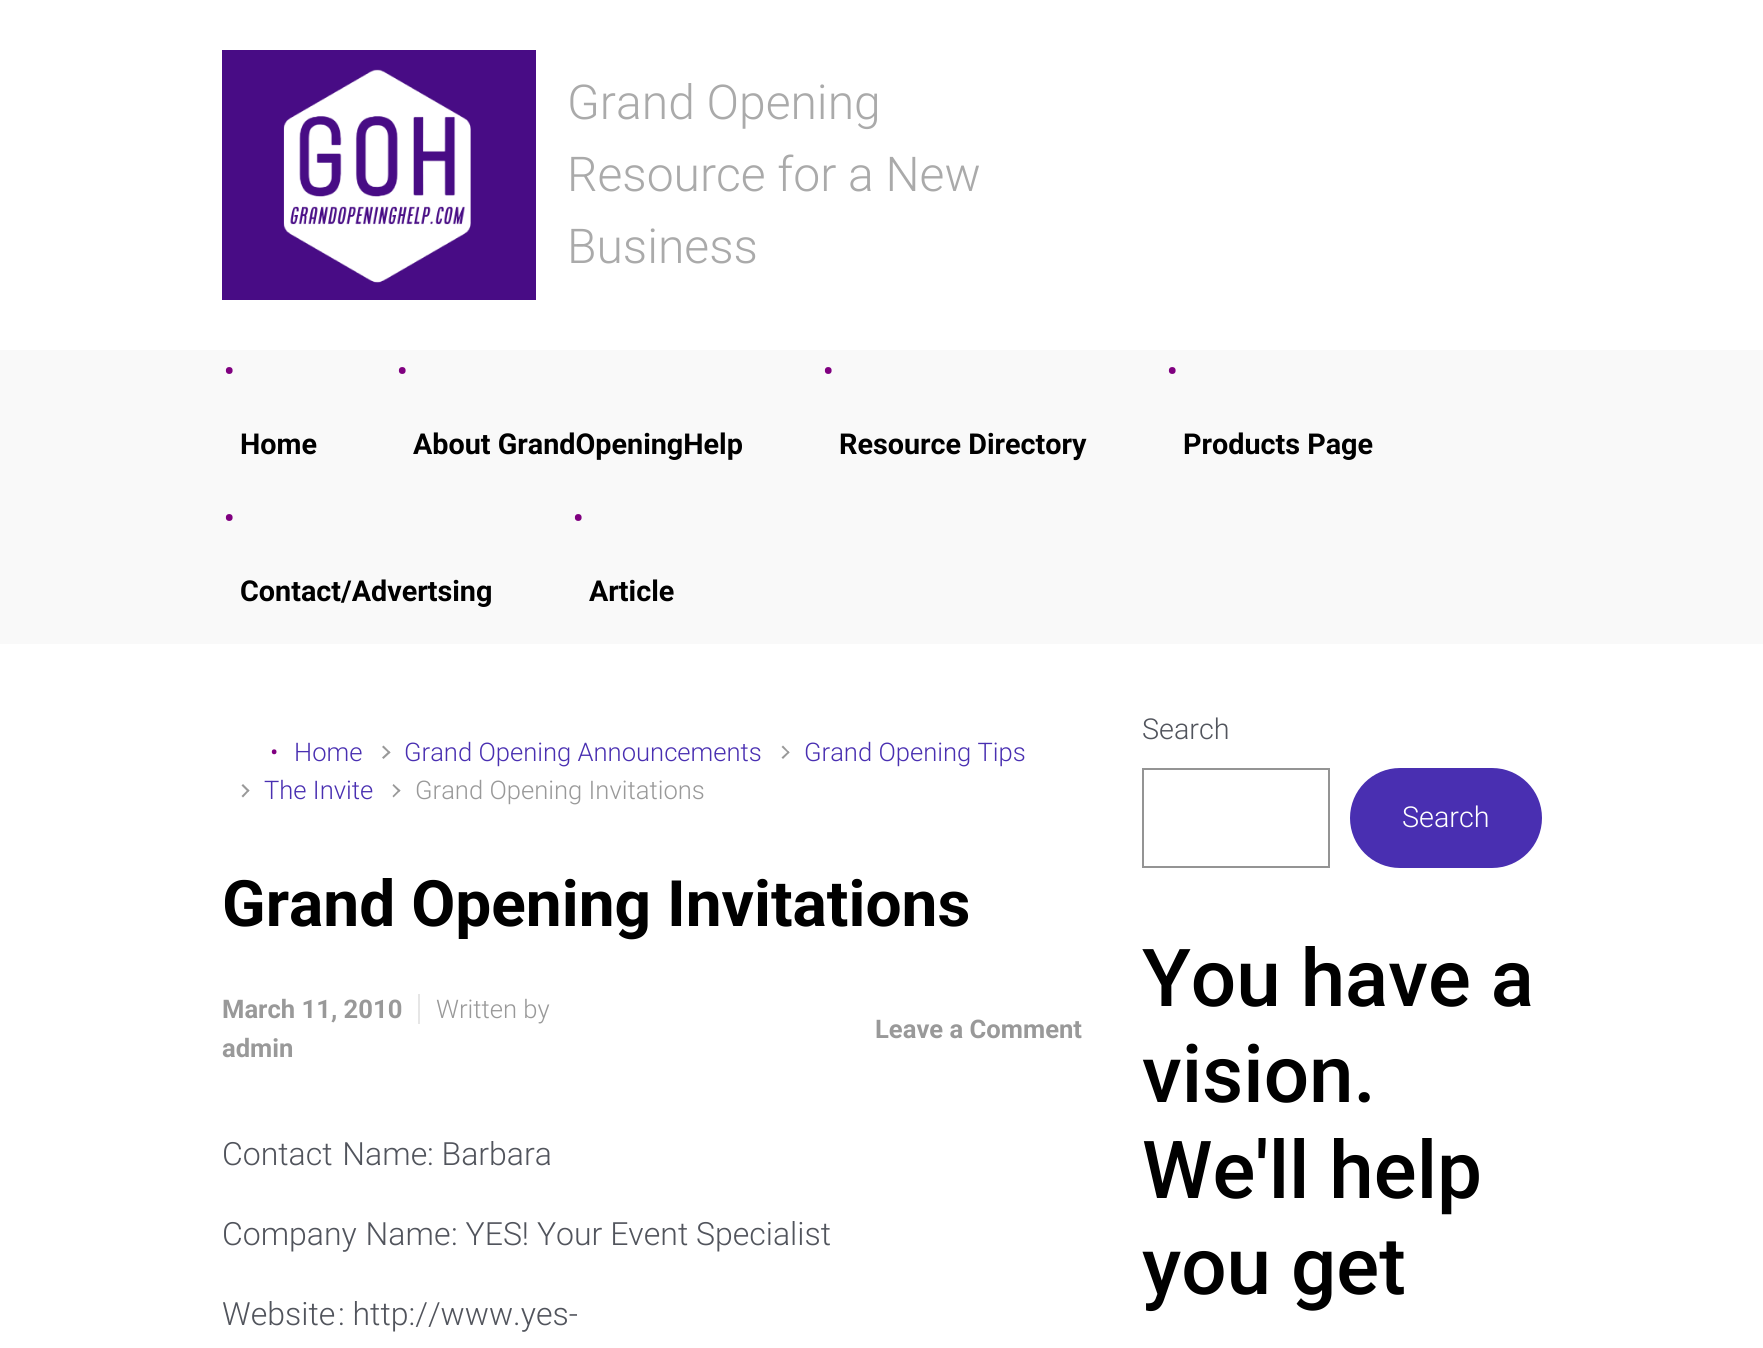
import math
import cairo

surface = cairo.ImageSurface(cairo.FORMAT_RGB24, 1763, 1348)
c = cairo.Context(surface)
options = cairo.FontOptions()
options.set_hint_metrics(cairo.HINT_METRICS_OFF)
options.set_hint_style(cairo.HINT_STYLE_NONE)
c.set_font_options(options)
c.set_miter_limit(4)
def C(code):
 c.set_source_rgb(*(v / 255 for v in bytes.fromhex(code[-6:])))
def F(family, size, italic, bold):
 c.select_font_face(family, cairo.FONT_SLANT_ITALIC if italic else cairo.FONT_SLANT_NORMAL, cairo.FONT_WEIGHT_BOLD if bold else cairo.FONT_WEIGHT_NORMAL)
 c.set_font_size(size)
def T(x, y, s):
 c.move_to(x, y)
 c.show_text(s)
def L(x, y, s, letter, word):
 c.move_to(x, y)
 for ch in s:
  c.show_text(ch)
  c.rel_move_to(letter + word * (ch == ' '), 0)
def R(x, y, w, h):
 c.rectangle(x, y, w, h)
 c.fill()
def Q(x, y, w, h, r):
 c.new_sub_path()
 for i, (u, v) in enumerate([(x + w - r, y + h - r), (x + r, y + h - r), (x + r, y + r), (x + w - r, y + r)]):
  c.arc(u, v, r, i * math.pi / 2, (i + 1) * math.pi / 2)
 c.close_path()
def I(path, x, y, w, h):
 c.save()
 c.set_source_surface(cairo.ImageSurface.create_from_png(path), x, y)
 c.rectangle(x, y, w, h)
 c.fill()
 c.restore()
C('f9f9f9')
c.paint()
C('ffffff')
R(0,0,1763,350)
I('1.png',222,50,314,250)
F('Roboto Light',48,0,0)
C('aaaaaa')
T(567,119,'Grand Opening')
T(567,191,'Resource for a New')
T(567,263,'Business')
F('Roboto',28.75,0,1)
C('800080')
T(224,381,'•')
C('000000')
T(240,454,'Home')
C('800080')
T(397,381,'•')
C('000000')
T(413,454,'About GrandOpeningHelp')
C('800080')
T(823,381,'•')
C('000000')
T(839,454,'Resource Directory')
C('800080')
T(1167,381,'•')
C('000000')
T(1183,454,'Products Page')
C('800080')
T(224,528,'•')
C('000000')
T(240,601,'Contact/Advertsing')
C('800080')
T(573,528,'•')
C('000000')
T(589,601,'Article')
C('ffffff')
R(0,644,1763,704)
F('Roboto Light',25.6,0,0)
C('800080')
T(270,761,'•')
C('492fb1')
T(294,761,'Home')
C('999999')
c.new_path()
c.move_to(382,747)
c.line_to(383.5,745.5)
c.line_to(390.5,752.5)
c.line_to(389,753.5)
c.close_path()
c.fill()
c.new_path()
c.move_to(382,757.5)
c.line_to(389,751)
c.line_to(390.5,752.5)
c.line_to(383.5,759)
c.close_path()
c.fill()
C('492fb1')
T(404,761,'Grand Opening Announcements')
C('999999')
c.new_path()
c.move_to(781.5,747)
c.line_to(783,745.5)
c.line_to(789.5,752.5)
c.line_to(788.5,753.5)
c.close_path()
c.fill()
c.new_path()
c.move_to(781.5,757.5)
c.line_to(788.5,751)
c.line_to(789.5,752.5)
c.line_to(783,759)
c.close_path()
c.fill()
C('492fb1')
T(804,761,'Grand Opening Tips')
C('999999')
c.new_path()
c.move_to(241.5,785.5)
c.line_to(243,784)
c.line_to(249.5,790.5)
c.line_to(248,792)
c.close_path()
c.fill()
c.new_path()
c.move_to(241.5,796)
c.line_to(248,789.5)
c.line_to(249.5,790.5)
c.line_to(243,797.5)
c.close_path()
c.fill()
C('492fb1')
T(264,799,'The Invite')
C('999999')
c.new_path()
c.move_to(392.5,785.5)
c.line_to(393.5,784)
c.line_to(400.5,790.5)
c.line_to(399,792)
c.close_path()
c.fill()
c.new_path()
c.move_to(392.5,796)
c.line_to(399,789.5)
c.line_to(400.5,790.5)
c.line_to(393.5,797.5)
c.close_path()
c.fill()
T(415,799,'Grand Opening Invitations')
F('Roboto',64,0,1)
C('000000')
T(222,926,'Grand Opening Invitations')
F('Roboto',25.6,0,1)
C('999999')
T(222,1018,'March 11, 2010')
C('e6e6e6')
R(418,994,2,30)
F('Roboto Light',25.6,0,0)
C('999999')
T(436,1018,'Written by')
F('Roboto',25.6,0,1)
T(222,1057,'admin')
T(875,1038,'Leave a Comment')
F('Roboto Light',32,0,0)
C('51545c')
L(222,1165,'Contact Name',0,2)
T(427,1165,': Barbara')
L(222,1245,'Company Name',0,1)
T(451,1245,': YES! Your Event Specialist')
T(222,1325,'Website')
T(338,1325,': http://www.yes-')
F('Roboto Light',28.75,0,0)
T(1142,739,'Search')
c.rectangle(1143,769,186,98)
C('949494')
c.stroke()
C('492fb1')
Q(1353,771,186,94,47)
c.fill_preserve()
c.set_line_width(6)
c.stroke()
C('ffffff')
T(1402,827,'Search')
F('Roboto Medium',80,0,0)
C('000000')
T(1142,1006,'You have a')
T(1142,1102,'vision.')
T(1142,1198,'We\'ll help')
T(1142,1294,'you get')
surface.write_to_png('o.png')
